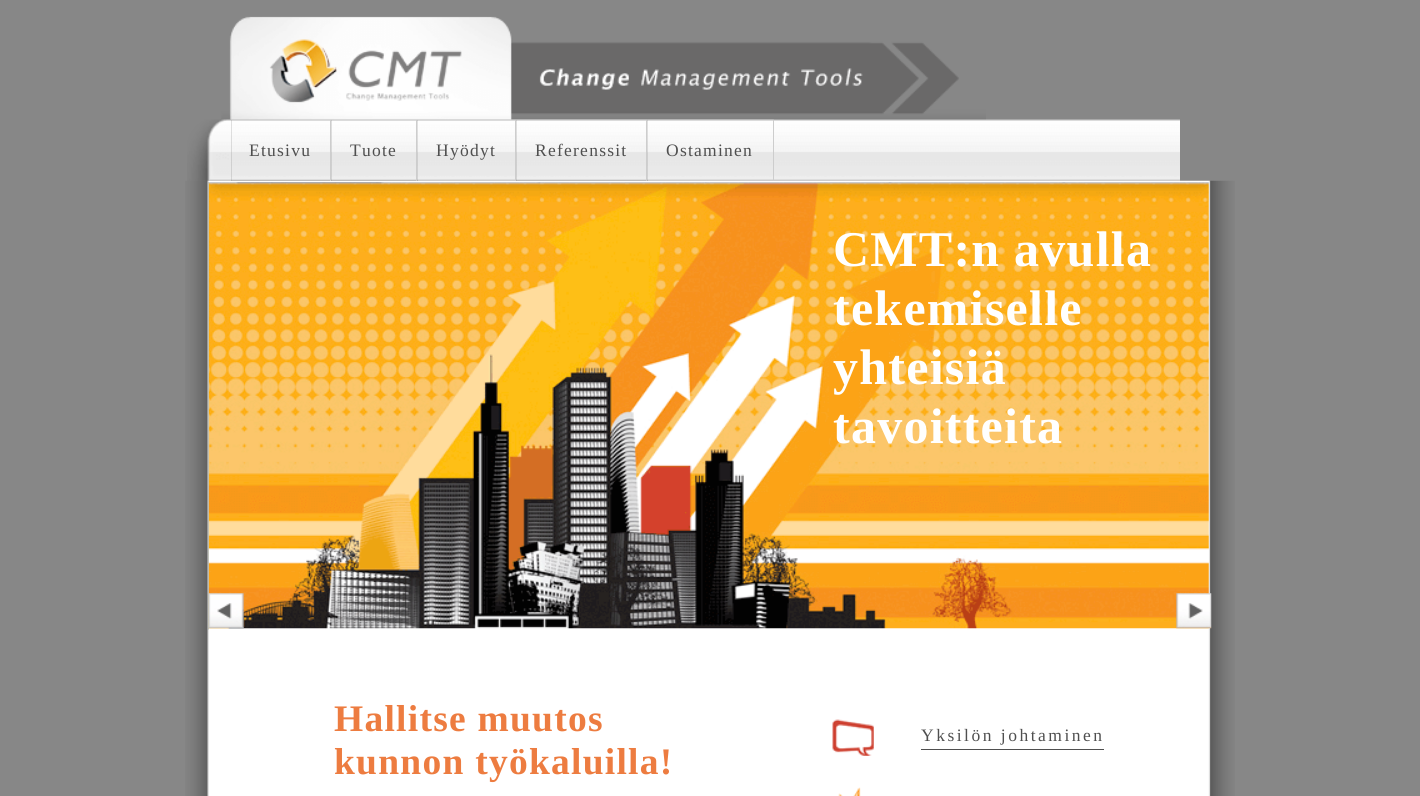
import math
import cairo

surface = cairo.ImageSurface(cairo.FORMAT_RGB24, 1420, 796)
c = cairo.Context(surface)
options = cairo.FontOptions()
options.set_hint_metrics(cairo.HINT_METRICS_OFF)
options.set_hint_style(cairo.HINT_STYLE_NONE)
c.set_font_options(options)
c.set_miter_limit(4)
def C(code):
 c.set_source_rgb(*(v / 255 for v in bytes.fromhex(code[-6:])))
def F(family, size, italic, bold):
 c.select_font_face(family, cairo.FONT_SLANT_ITALIC if italic else cairo.FONT_SLANT_NORMAL, cairo.FONT_WEIGHT_BOLD if bold else cairo.FONT_WEIGHT_NORMAL)
 c.set_font_size(size)
def L(x, y, s, letter, word):
 c.move_to(x, y)
 for ch in s:
  c.show_text(ch)
  c.rel_move_to(letter + word * (ch == ' '), 0)
def R(x, y, w, h):
 c.rectangle(x, y, w, h)
 c.fill()
def I(path, x, y, w, h):
 c.save()
 c.set_source_surface(cairo.ImageSurface.create_from_png(path), x, y)
 c.rectangle(x, y, w, h)
 c.fill()
 c.restore()
C('878787')
c.paint()
I('2.png',187,119,43,62)
I('3.png',230,119,950,62)
I('9.png',185,180,1050,616)
C('878787')
R(231,120,99,61)
I('4.png',231,119,101,62)
R(331,120,87,61)
I('5.png',331,119,87,62)
I('6.png',417,119,100,62)
R(516,120,132,61)
I('7.png',516,119,132,62)
I('8.png',647,119,127,62)
I('1.png',221,16,765,104)
C('cdcdcd')
R(330,120,1,61)
F('Liberation Serif',17.5,0,0)
C('4f4f4f')
L(249,156,'Etusivu',1.25,0)
C('cdcdcd')
R(416,120,1,61)
C('4f4f4f')
L(350,156,'Tuote',1.25,0)
C('cdcdcd')
R(515,120,1,61)
C('4f4f4f')
L(436,156,'Hyödyt',1.25,0)
C('cdcdcd')
R(646,120,1,61)
C('4f4f4f')
L(535,156,'Referenssit',1.25,0)
C('cdcdcd')
R(773,120,1,61)
C('4f4f4f')
L(666,156,'Ostaminen',1.25,0)
I('10.png',208,182,1,448)
I('11.png',208,182,1001,447)
F('Liberation Serif',50,0,1)
C('ffffff')
L(833,266,'CMT:n avulla',1.25,0)
L(833,325,'tekemiselle',1.25,0)
L(833,384,'yhteisiä',1.25,0)
L(833,443,'tavoitteita',1.25,0)
I('12.png',208,593,36,36)
I('13.png',1176,593,36,36)
F('Liberation Serif',37.5,0,1)
C('ed7c40')
L(334,731,'Hallitse muutos',1.25,0)
L(334,774,'kunnon työkaluilla!',1.25,0)
I('14.png',832,719,42,37)
C('4f4f4f')
R(921,749,183,1)
F('Liberation Serif',17.5,0,0)
L(921,741,'Yksilön johtaminen',2.5,0)
I('15.png',838,787,23,9)
surface.write_to_png('o.png')
